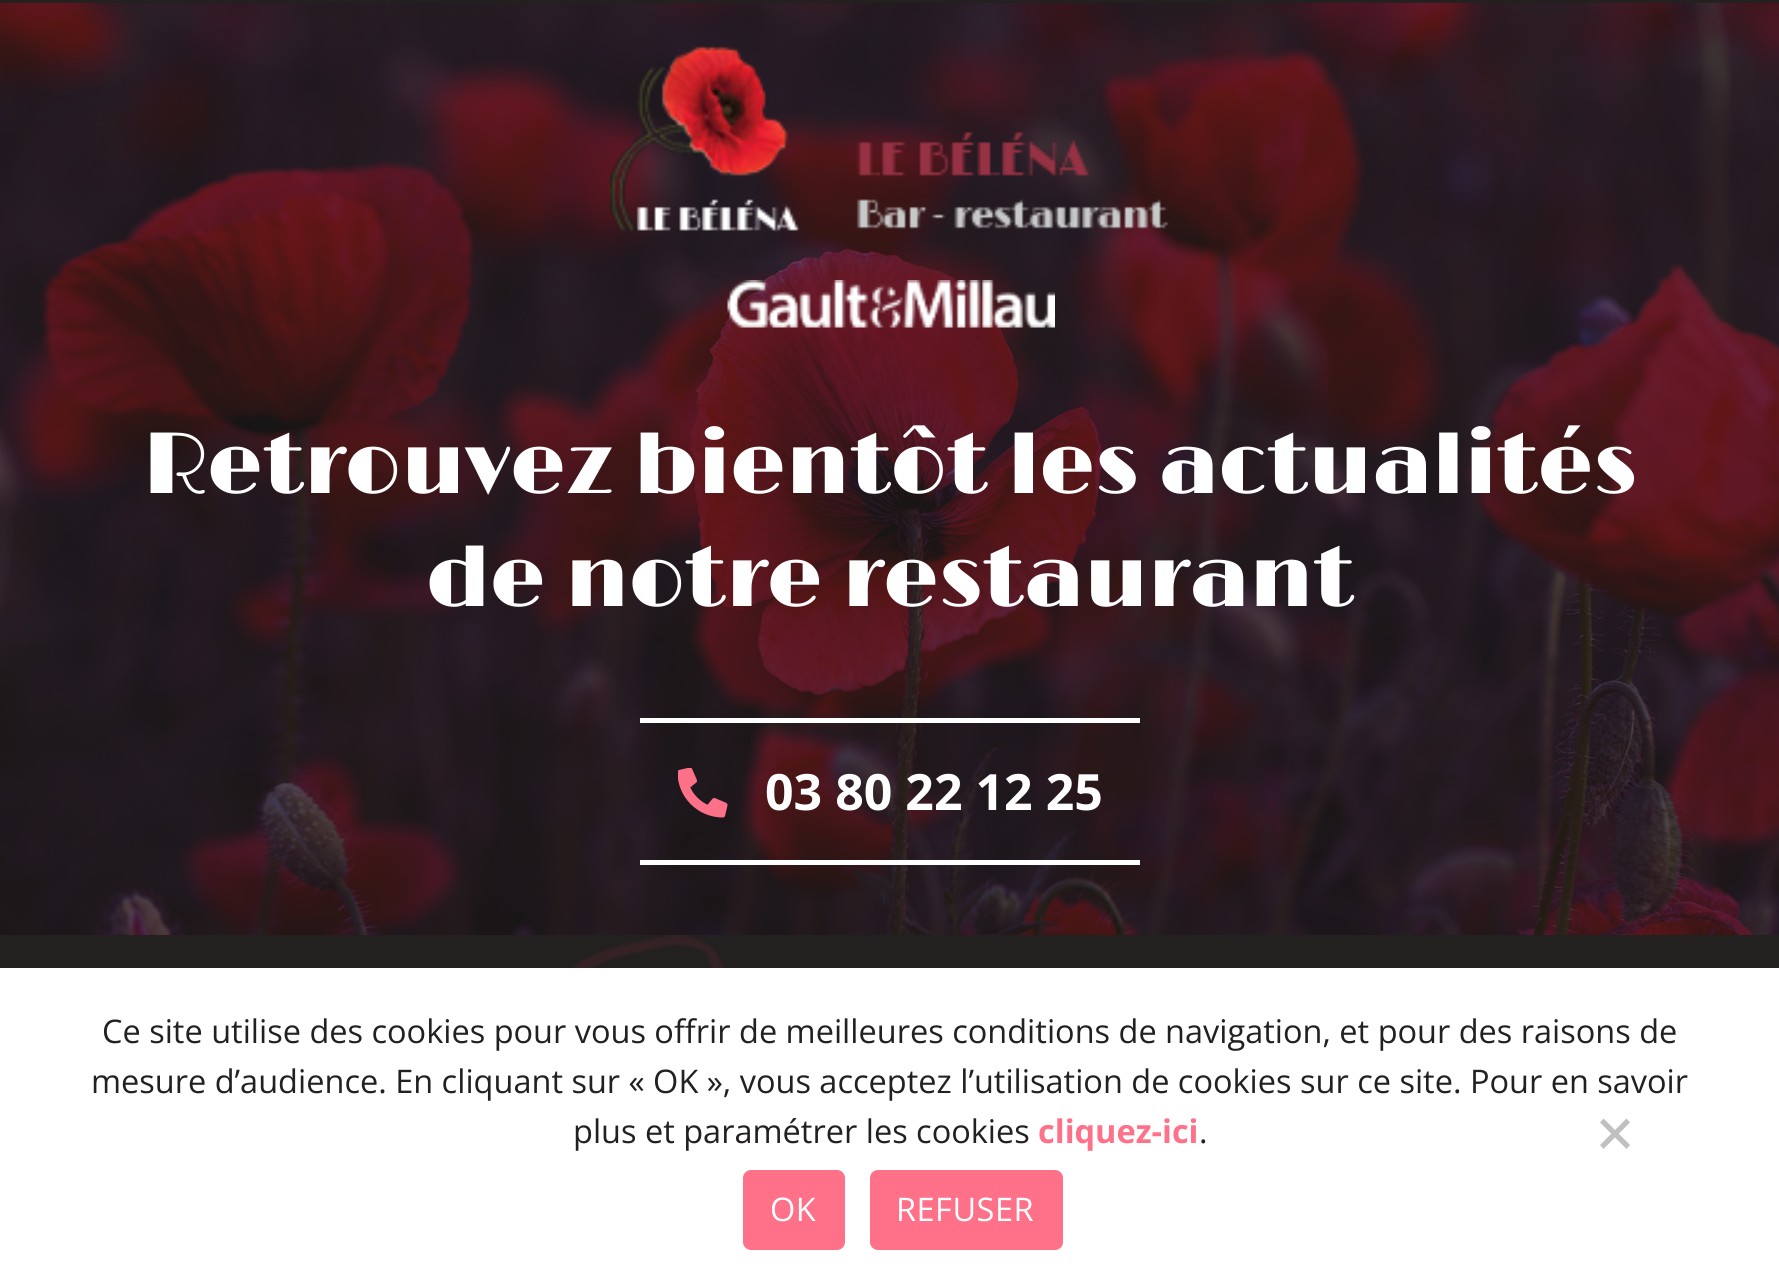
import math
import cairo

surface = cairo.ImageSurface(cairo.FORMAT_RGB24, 1779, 1287)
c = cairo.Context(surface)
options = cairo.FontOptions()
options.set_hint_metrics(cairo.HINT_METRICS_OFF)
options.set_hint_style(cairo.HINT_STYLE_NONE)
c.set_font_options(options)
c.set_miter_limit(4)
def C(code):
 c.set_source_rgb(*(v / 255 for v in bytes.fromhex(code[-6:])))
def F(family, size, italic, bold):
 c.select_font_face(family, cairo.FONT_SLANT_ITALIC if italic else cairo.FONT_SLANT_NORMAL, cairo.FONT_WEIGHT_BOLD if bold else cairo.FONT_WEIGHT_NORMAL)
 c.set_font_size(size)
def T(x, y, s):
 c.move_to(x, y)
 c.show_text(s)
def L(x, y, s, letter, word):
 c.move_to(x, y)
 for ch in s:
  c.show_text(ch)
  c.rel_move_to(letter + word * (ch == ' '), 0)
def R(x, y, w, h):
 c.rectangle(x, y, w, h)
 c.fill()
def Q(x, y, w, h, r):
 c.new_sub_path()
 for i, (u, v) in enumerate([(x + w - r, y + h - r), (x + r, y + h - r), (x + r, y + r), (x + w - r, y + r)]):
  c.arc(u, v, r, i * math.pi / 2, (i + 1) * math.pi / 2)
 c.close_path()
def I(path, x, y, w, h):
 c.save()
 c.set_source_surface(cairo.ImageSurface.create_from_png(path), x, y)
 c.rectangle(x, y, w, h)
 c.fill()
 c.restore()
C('232020')
c.paint()
I('1.png',0,2,1779,933)
I('2.png',610,45,559,188)
I('3.png',727,280,328,48)
F('Limelight Light',87.5,0,0)
C('ffffff')
T(143,493,'Retrouvez bientôt les actualités')
T(426,606,'de notre restaurant')
R(640,718,500,5)
R(640,860,500,5)
I('4.png',678,768,50,50)
F('Open Sans',50,0,1)
T(765,810,'03 80 22 12 25')
I('5.png',570,935,155,33)
R(0,968,1779,319)
F('Open Sans',32.5,0,0)
C('232020')
T(102,1043,'Ce site utilise des cookies pour vous offrir de meilleures conditions de navigation, et pour des raisons de')
T(91,1093,'mesure d’audience. En cliquant sur « OK », vous acceptez l’utilisation de cookies sur ce site. Pour en savoir')
T(573,1143,'plus et paramétrer les cookies')
F('Open Sans',32.5,0,1)
C('ff7188')
T(1038,1143,'cliquez-ici')
F('Open Sans',32.5,0,0)
C('232020')
T(1199,1143,'.')
C('c0c0c0')
c.new_path()
c.move_to(1626.5,1118.5)
c.line_to(1630,1122.5)
c.line_to(1603.5,1149)
c.line_to(1600,1145)
c.close_path()
c.fill()
c.new_path()
c.move_to(1600,1122.5)
c.line_to(1603.5,1118.5)
c.line_to(1630,1145)
c.line_to(1626.5,1149)
c.close_path()
c.fill()
C('ff7188')
Q(744.5,1171.5,99,77,6.5)
c.fill_preserve()
c.set_line_width(3)
c.stroke()
C('ffffff')
L(770,1221,'OK',.5,0)
C('ff7188')
Q(871.5,1171.5,190,77,6.5)
c.fill_preserve()
c.stroke()
C('ffffff')
L(896,1221,'REFUSER',.5,0)
surface.write_to_png('o.png')
